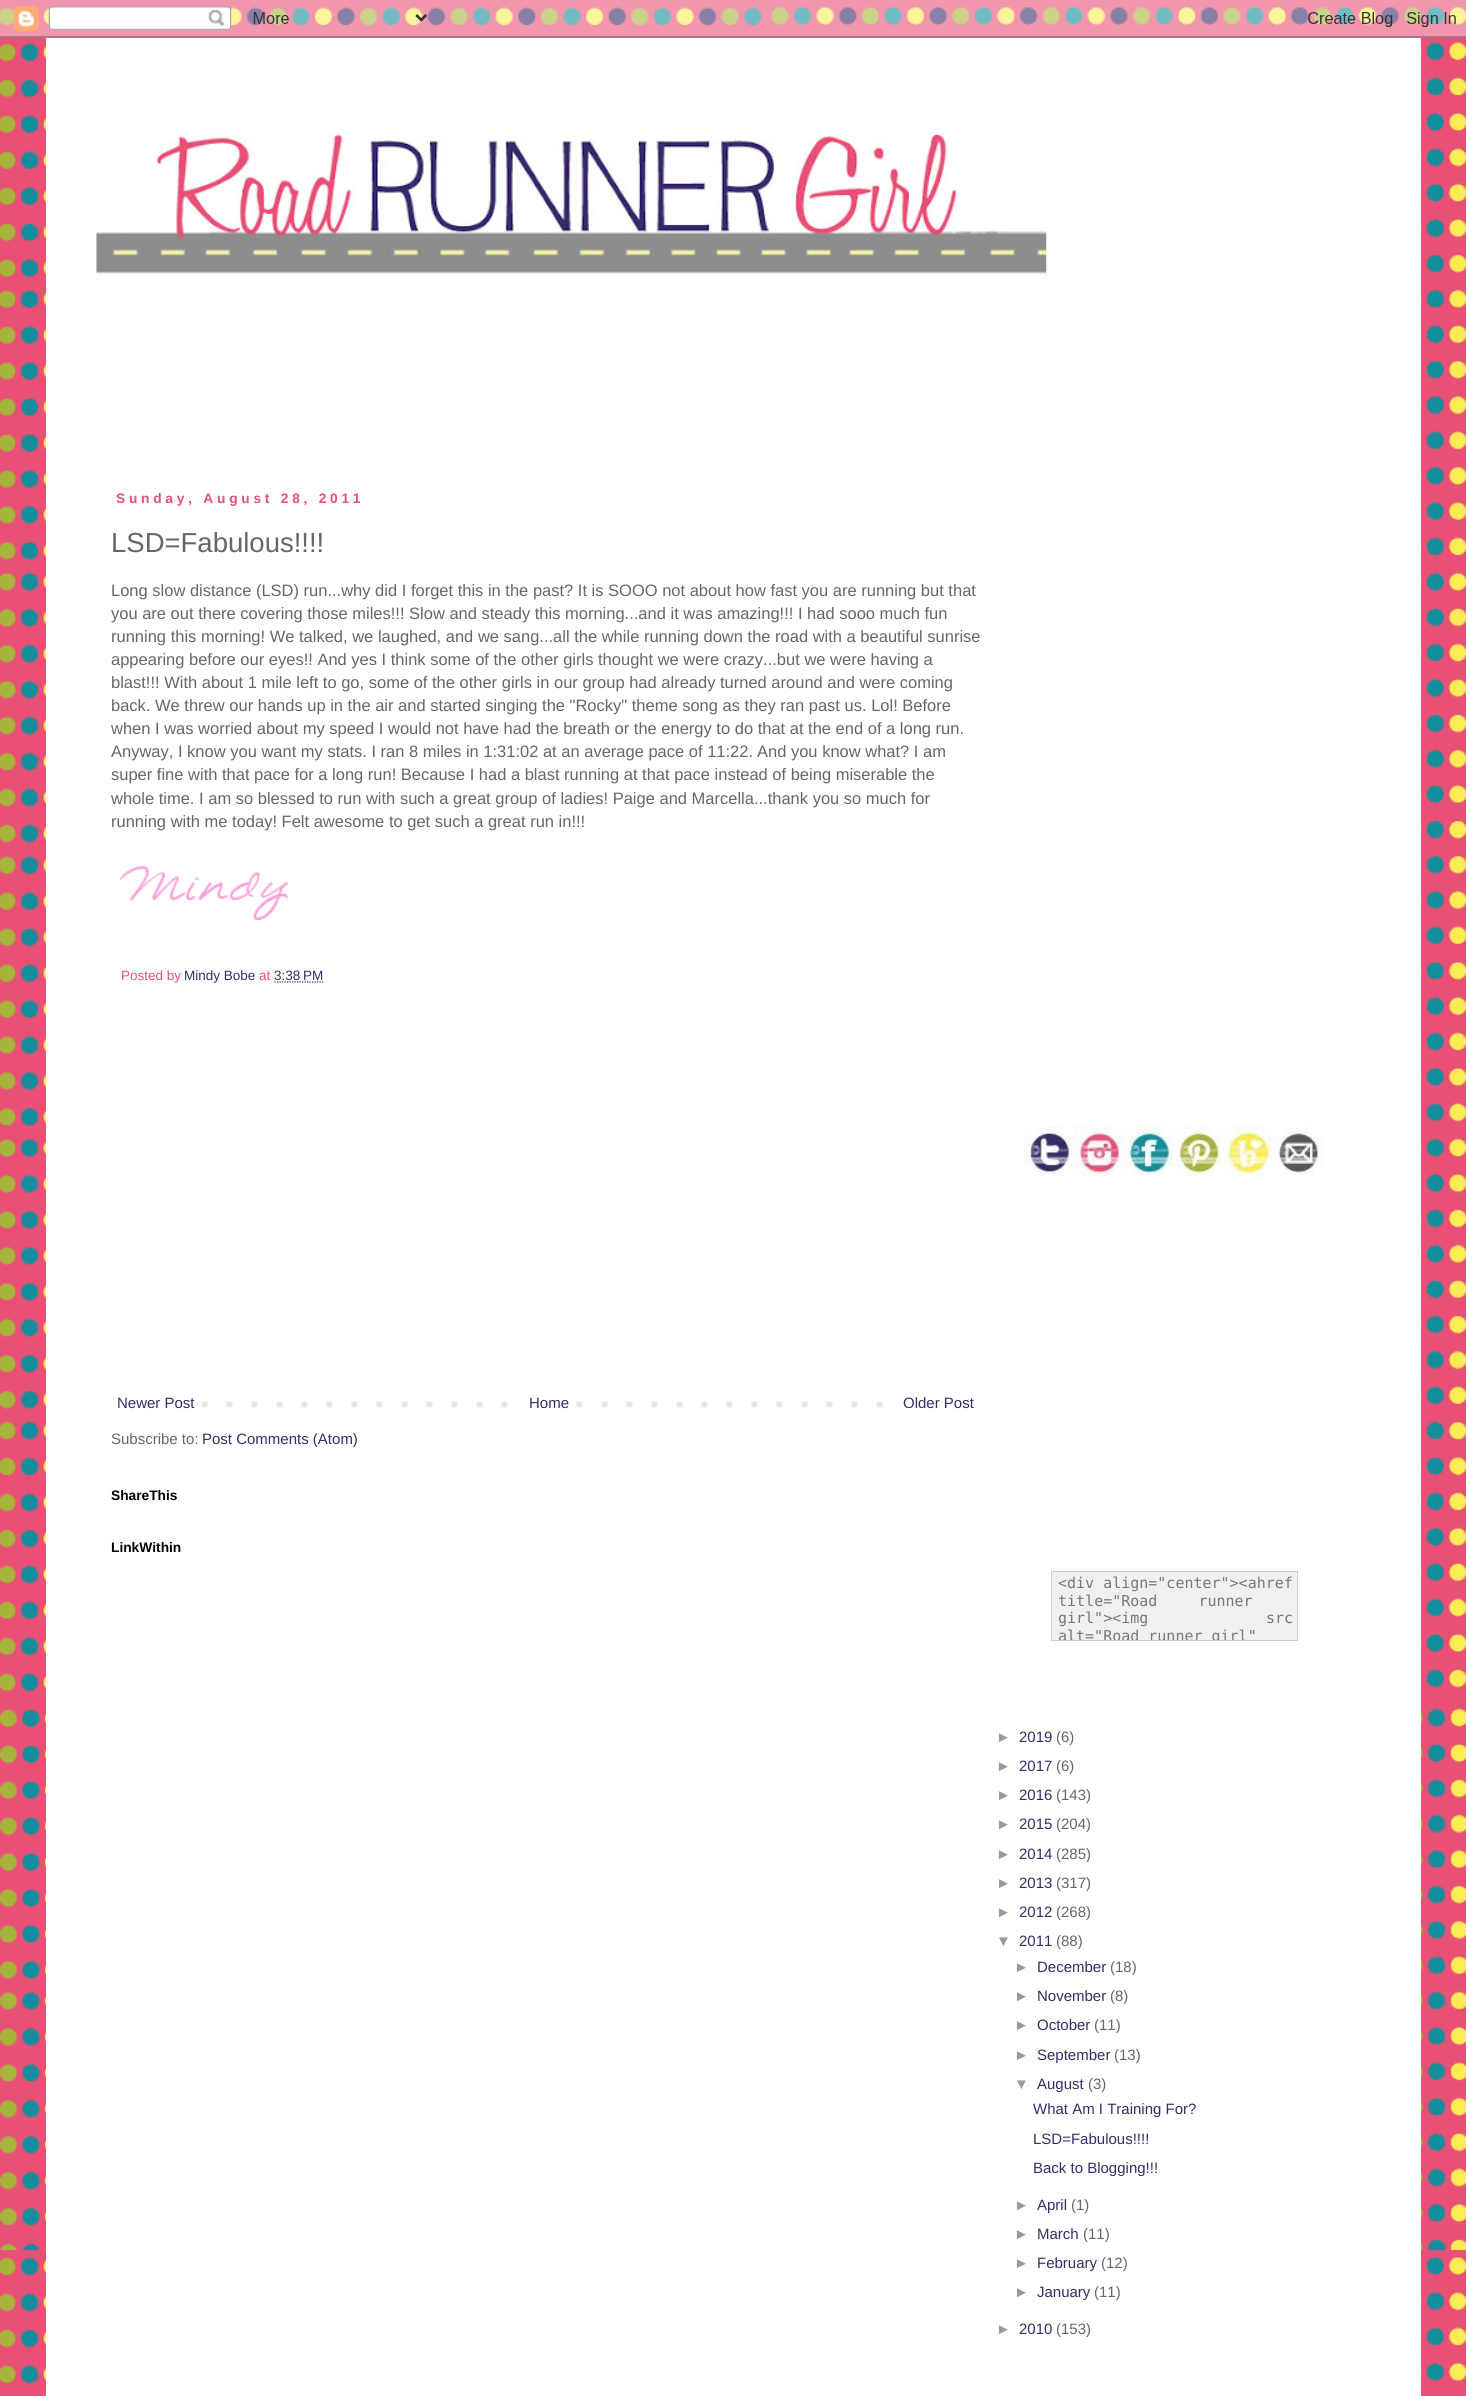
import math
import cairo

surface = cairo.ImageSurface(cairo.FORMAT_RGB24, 1466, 2396)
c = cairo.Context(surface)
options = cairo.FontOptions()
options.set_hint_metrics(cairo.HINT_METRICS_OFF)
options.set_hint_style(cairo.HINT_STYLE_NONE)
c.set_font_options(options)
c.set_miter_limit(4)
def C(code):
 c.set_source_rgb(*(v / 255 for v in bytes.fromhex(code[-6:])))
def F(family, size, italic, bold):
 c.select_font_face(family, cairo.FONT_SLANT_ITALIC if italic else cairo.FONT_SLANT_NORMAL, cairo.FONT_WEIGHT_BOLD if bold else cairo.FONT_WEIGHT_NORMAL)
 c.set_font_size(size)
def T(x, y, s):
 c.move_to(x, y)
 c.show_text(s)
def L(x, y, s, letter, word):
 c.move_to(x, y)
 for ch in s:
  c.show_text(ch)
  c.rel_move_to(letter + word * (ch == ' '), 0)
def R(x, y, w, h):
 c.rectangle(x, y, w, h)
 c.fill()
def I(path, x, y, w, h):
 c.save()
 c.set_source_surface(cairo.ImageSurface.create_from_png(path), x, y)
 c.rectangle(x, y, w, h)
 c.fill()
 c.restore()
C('ffffff')
c.paint()
I('1.png',0,500,1466,1896)
I('2.png',0,0,1466,500)
I('3.png',0,0,1466,38)
C('ffffff')
R(46,38,1375,2358)
I('4.png',96,130,951,144)
F('Liberation Sans',13.75,0,1)
C('e65076')
L(116,503,'Sunday, August 28, 2011',3.75,0)
F('Liberation Sans',27.5,0,0)
C('666666')
T(111,552,'LSD=Fabulous!!!!')
F('Liberation Sans',16.5,0,0)
T(111,596,'Long slow distance (LSD) run...why did I forget this in the past? It is SOOO not about how fast you are running but that')
T(111,619,'you are out there covering those miles!!! Slow and steady this morning...and it was amazing!!! I had sooo much fun')
T(111,642,'running this morning! We talked, we laughed, and we sang...all the while running down the road with a beautiful sunrise')
T(111,665,'appearing before our eyes!! And yes I think some of the other girls thought we were crazy...but we were having a')
T(111,688,'blast!!! With about 1 mile left to go, some of the other girls in our group had already turned around and were coming')
T(111,711,'back. We threw our hands up in the air and started singing the "Rocky" theme song as they ran past us. Lol! Before')
T(111,734,'when I was worried about my speed I would not have had the breath or the energy to do that at the end of a long run.')
T(111,757,'Anyway, I know you want my stats. I ran 8 miles in 1:31:02 at an average pace of 11:22.')
T(757,757,'And you know what? I am')
T(111,780,'super fine with that pace for a long run! Because I had a blast running at that pace instead of being miserable the')
T(111,804,'whole time. I am so blessed to run with such a great group of ladies! Paige and Marcella...thank you so much for')
T(111,827,'running with me today! Felt awesome to get such a great run in!!!')
I('5.png',119,866,169,54)
F('Liberation Sans',13.5,0,0)
C('e65076')
T(121,980,'Posted by')
C('392b69')
T(184,980,'Mindy Bobe')
C('e65076')
T(259,980,'at')
C('392b69')
T(274,980,'3:38 PM')
c.new_path()
c.move_to(274.5,982)
c.line_to(323.5,982)
c.set_line_width(1.2)
c.set_dash([1.25,1.25])
c.stroke()
I('6.png',201,1401,781,7)
F('Liberation Sans',15,0,0)
T(117,1408,'Newer Post')
C('ffffff')
R(526,1401,33,7)
C('392b69')
T(529,1408,'Home')
C('ffffff')
R(901,1401,80,7)
C('392b69')
T(903,1408,'Older Post')
C('666666')
T(111,1444,'Subscribe to:')
C('392b69')
T(202,1444,'Post Comments (Atom)')
F('Liberation Sans',13.75,0,1)
C('000000')
T(111,1500,'ShareThis')
T(111,1552,'LinkWithin')
I('7.png',1023,1126,51,50)
I('8.png',1073,1126,51,50)
I('9.png',1124,1126,50,50)
I('10.png',1174,1126,50,50)
I('11.png',1223,1126,51,50)
I('12.png',1274,1126,50,50)
C('f0f0f0')
c.rectangle(1051.5,1571.5,246,69)
c.fill_preserve()
C('cccccc')
c.set_line_width(1)
c.set_dash([])
c.stroke()
F('DejaVu Sans Mono',15,0,0)
C('777777')
T(1058,1588,'<div align="center"><ahref')
L(1058,1606,'title="Road runner',0,32)
T(1058,1623,'girl"><img')
T(1266,1623,'src')
c.save()
c.rectangle(1053,1573,243,67)
c.clip()
T(1058,1641,'alt="Road runner girl"')
c.restore()
F('Liberation Sans',15,0,0)
C('999999')
T(996,1742,'►')
C('392b69')
T(1019,1742,'2019')
C('666666')
T(1056,1742,'(6)')
C('999999')
T(996,1771,'►')
C('392b69')
T(1019,1771,'2017')
C('666666')
T(1056,1771,'(6)')
C('999999')
T(996,1800,'►')
C('392b69')
T(1019,1800,'2016')
C('666666')
T(1056,1800,'(143)')
C('999999')
T(996,1829,'►')
C('392b69')
T(1019,1829,'2015')
C('666666')
T(1056,1829,'(204)')
C('999999')
T(996,1859,'►')
C('392b69')
T(1019,1859,'2014')
C('666666')
T(1056,1859,'(285)')
C('999999')
T(996,1888,'►')
C('392b69')
T(1019,1888,'2013')
C('666666')
T(1056,1888,'(317)')
C('999999')
T(996,1917,'►')
C('392b69')
T(1019,1917,'2012')
C('666666')
T(1056,1917,'(268)')
C('999999')
T(996,1946,'▼')
C('392b69')
T(1019,1946,'2011')
C('666666')
T(1056,1946,'(88)')
C('999999')
T(1014,1972,'►')
C('392b69')
T(1037,1972,'December')
C('666666')
T(1110,1972,'(18)')
C('999999')
T(1014,2001,'►')
C('392b69')
T(1037,2001,'November')
C('666666')
T(1110,2001,'(8)')
C('999999')
T(1014,2030,'►')
C('392b69')
T(1037,2030,'October')
C('666666')
T(1094,2030,'(11)')
C('999999')
T(1014,2060,'►')
C('392b69')
T(1037,2060,'September')
C('666666')
T(1114,2060,'(13)')
C('999999')
T(1014,2089,'▼')
C('392b69')
T(1037,2089,'August')
C('666666')
T(1088,2089,'(3)')
C('392b69')
T(1033,2114,'What Am I Training For?')
T(1033,2144,'LSD=Fabulous!!!!')
T(1033,2173,'Back to Blogging!!!')
C('999999')
T(1014,2210,'►')
C('392b69')
T(1037,2210,'April')
C('666666')
T(1071,2210,'(1)')
C('999999')
T(1014,2239,'►')
C('392b69')
T(1037,2239,'March')
C('666666')
T(1083,2239,'(11)')
C('999999')
T(1014,2268,'►')
C('392b69')
T(1037,2268,'February')
C('666666')
T(1101,2268,'(12)')
C('999999')
T(1014,2297,'►')
C('392b69')
T(1037,2297,'January')
C('666666')
T(1094,2297,'(11)')
C('999999')
T(996,2334,'►')
C('392b69')
T(1019,2334,'2010')
C('666666')
T(1056,2334,'(153)')
surface.write_to_png('o.png')
